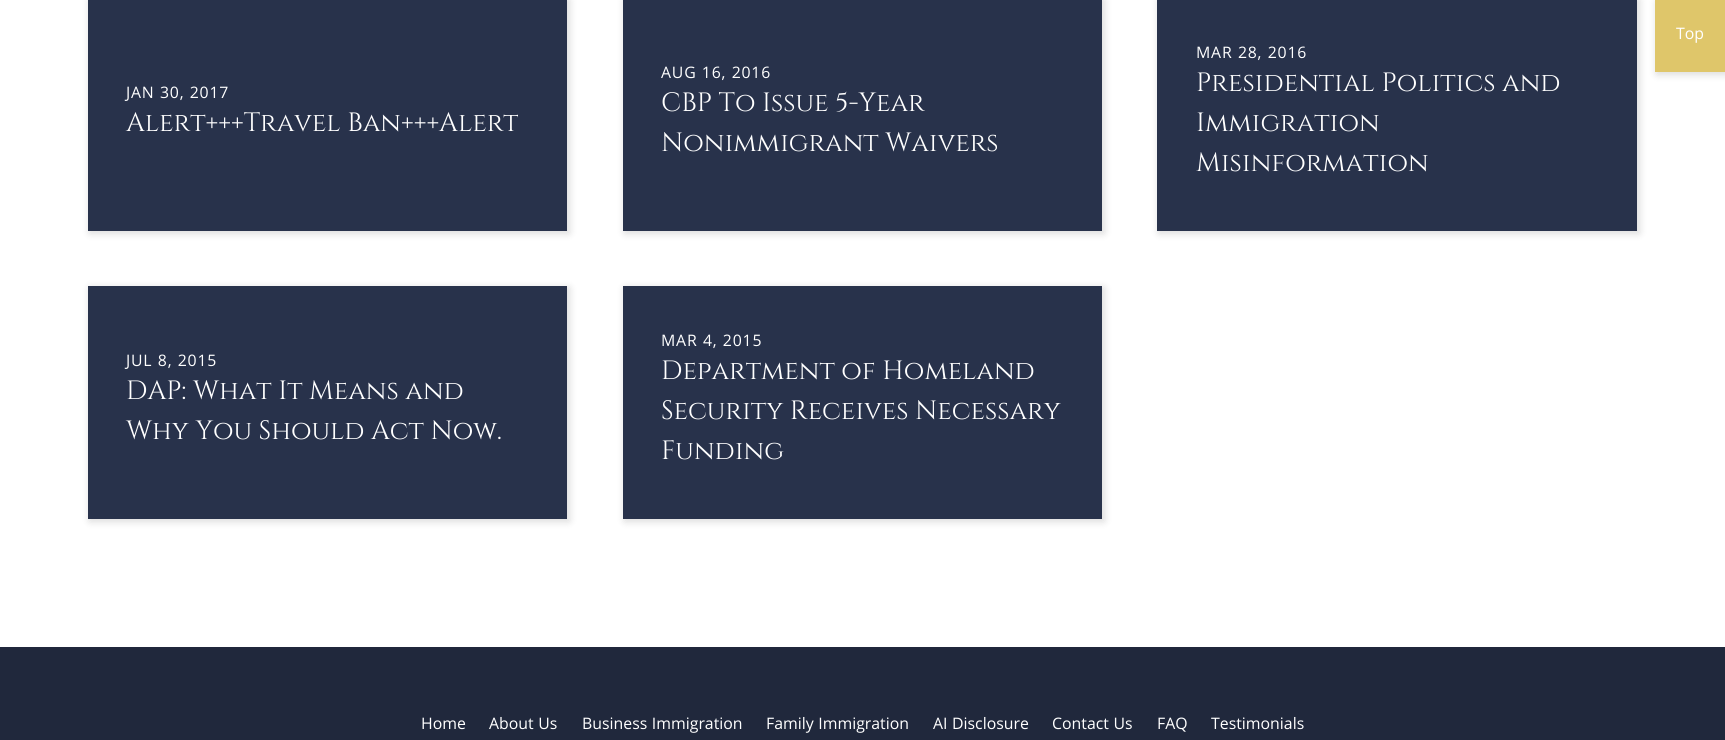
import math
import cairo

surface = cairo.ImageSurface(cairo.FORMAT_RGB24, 1725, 740)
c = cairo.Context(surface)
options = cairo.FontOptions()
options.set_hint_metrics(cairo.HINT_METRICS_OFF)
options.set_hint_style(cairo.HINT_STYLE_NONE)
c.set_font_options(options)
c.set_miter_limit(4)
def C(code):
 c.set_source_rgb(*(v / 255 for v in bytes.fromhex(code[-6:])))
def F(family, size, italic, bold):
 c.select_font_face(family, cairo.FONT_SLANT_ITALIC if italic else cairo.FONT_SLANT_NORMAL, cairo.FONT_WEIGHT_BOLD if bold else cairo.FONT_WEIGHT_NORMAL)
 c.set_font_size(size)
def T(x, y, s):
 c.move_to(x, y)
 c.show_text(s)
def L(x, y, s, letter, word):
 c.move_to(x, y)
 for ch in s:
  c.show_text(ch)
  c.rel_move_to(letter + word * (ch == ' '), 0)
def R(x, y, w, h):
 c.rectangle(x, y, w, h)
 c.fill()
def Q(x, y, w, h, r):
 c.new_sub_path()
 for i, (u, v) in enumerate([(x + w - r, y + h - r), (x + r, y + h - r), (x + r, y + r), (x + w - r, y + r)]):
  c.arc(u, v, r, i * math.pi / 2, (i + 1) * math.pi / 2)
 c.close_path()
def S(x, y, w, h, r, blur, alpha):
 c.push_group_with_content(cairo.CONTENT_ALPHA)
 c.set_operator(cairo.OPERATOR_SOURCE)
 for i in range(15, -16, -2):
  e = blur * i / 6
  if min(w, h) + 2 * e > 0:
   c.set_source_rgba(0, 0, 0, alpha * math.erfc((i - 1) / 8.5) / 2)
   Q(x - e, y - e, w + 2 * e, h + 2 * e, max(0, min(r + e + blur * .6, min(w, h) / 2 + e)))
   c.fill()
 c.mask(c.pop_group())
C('ffffff')
c.paint()
C('000000')
S(1657,2,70,72,0,4.5,.16)
C('dfc66a')
R(1655,0,70,72)
F('Khula',17,0,0)
C('ffffff')
T(1676,39,'Top')
C('000000')
S(90,0,479,233,0,4.5,.16)
C('28324b')
R(88,0,479,231)
C('ffffff')
L(126,98,'JAN 30, 2017',.8,0)
F('Cinzel',26.5,0,0)
T(126,131,'Alert+++Travel Ban+++Alert')
C('000000')
S(625,0,479,233,0,4.5,.16)
C('28324b')
R(623,0,479,231)
F('Khula',17,0,0)
C('ffffff')
L(661,78,'AUG 16, 2016',.8,0)
F('Cinzel',26.5,0,0)
T(661,111,'CBP To Issue 5-Year')
T(661,151,'Nonimmigrant Waivers')
C('000000')
S(1159,0,480,233,0,4.5,.16)
C('28324b')
R(1157,0,480,231)
F('Khula',17,0,0)
C('ffffff')
L(1196,58,'MAR 28, 2016',.8,0)
F('Cinzel',26.5,0,0)
T(1196,91,'Presidential Politics and')
T(1196,131,'Immigration')
T(1196,171,'Misinformation')
C('000000')
S(90,288,479,233,0,4.5,.16)
C('28324b')
R(88,286,479,233)
F('Khula',17,0,0)
C('ffffff')
L(126,366,'JUL 8, 2015',.8,0)
F('Cinzel',26.5,0,0)
T(126,399,'DAP: What It Means and')
T(126,439,'Why You Should Act Now.')
C('000000')
S(625,288,479,233,0,4.5,.16)
C('28324b')
R(623,286,479,233)
F('Khula',17,0,0)
C('ffffff')
L(661,346,'MAR 4, 2015',.8,0)
F('Cinzel',26.5,0,0)
T(661,379,'Department of Homeland')
T(661,419,'Security Receives Necessary')
T(661,459,'Funding')
C('20283c')
R(0,647,1725,93)
F('Khula',17,0,0)
C('ffffff')
T(421,729,'Home')
T(489,729,'About Us')
T(582,729,'Business Immigration')
T(766,729,'Family Immigration')
T(933,729,'AI Disclosure')
T(1052,729,'Contact Us')
T(1157,729,'FAQ')
T(1211,729,'Testimonials')
surface.write_to_png('o.png')
